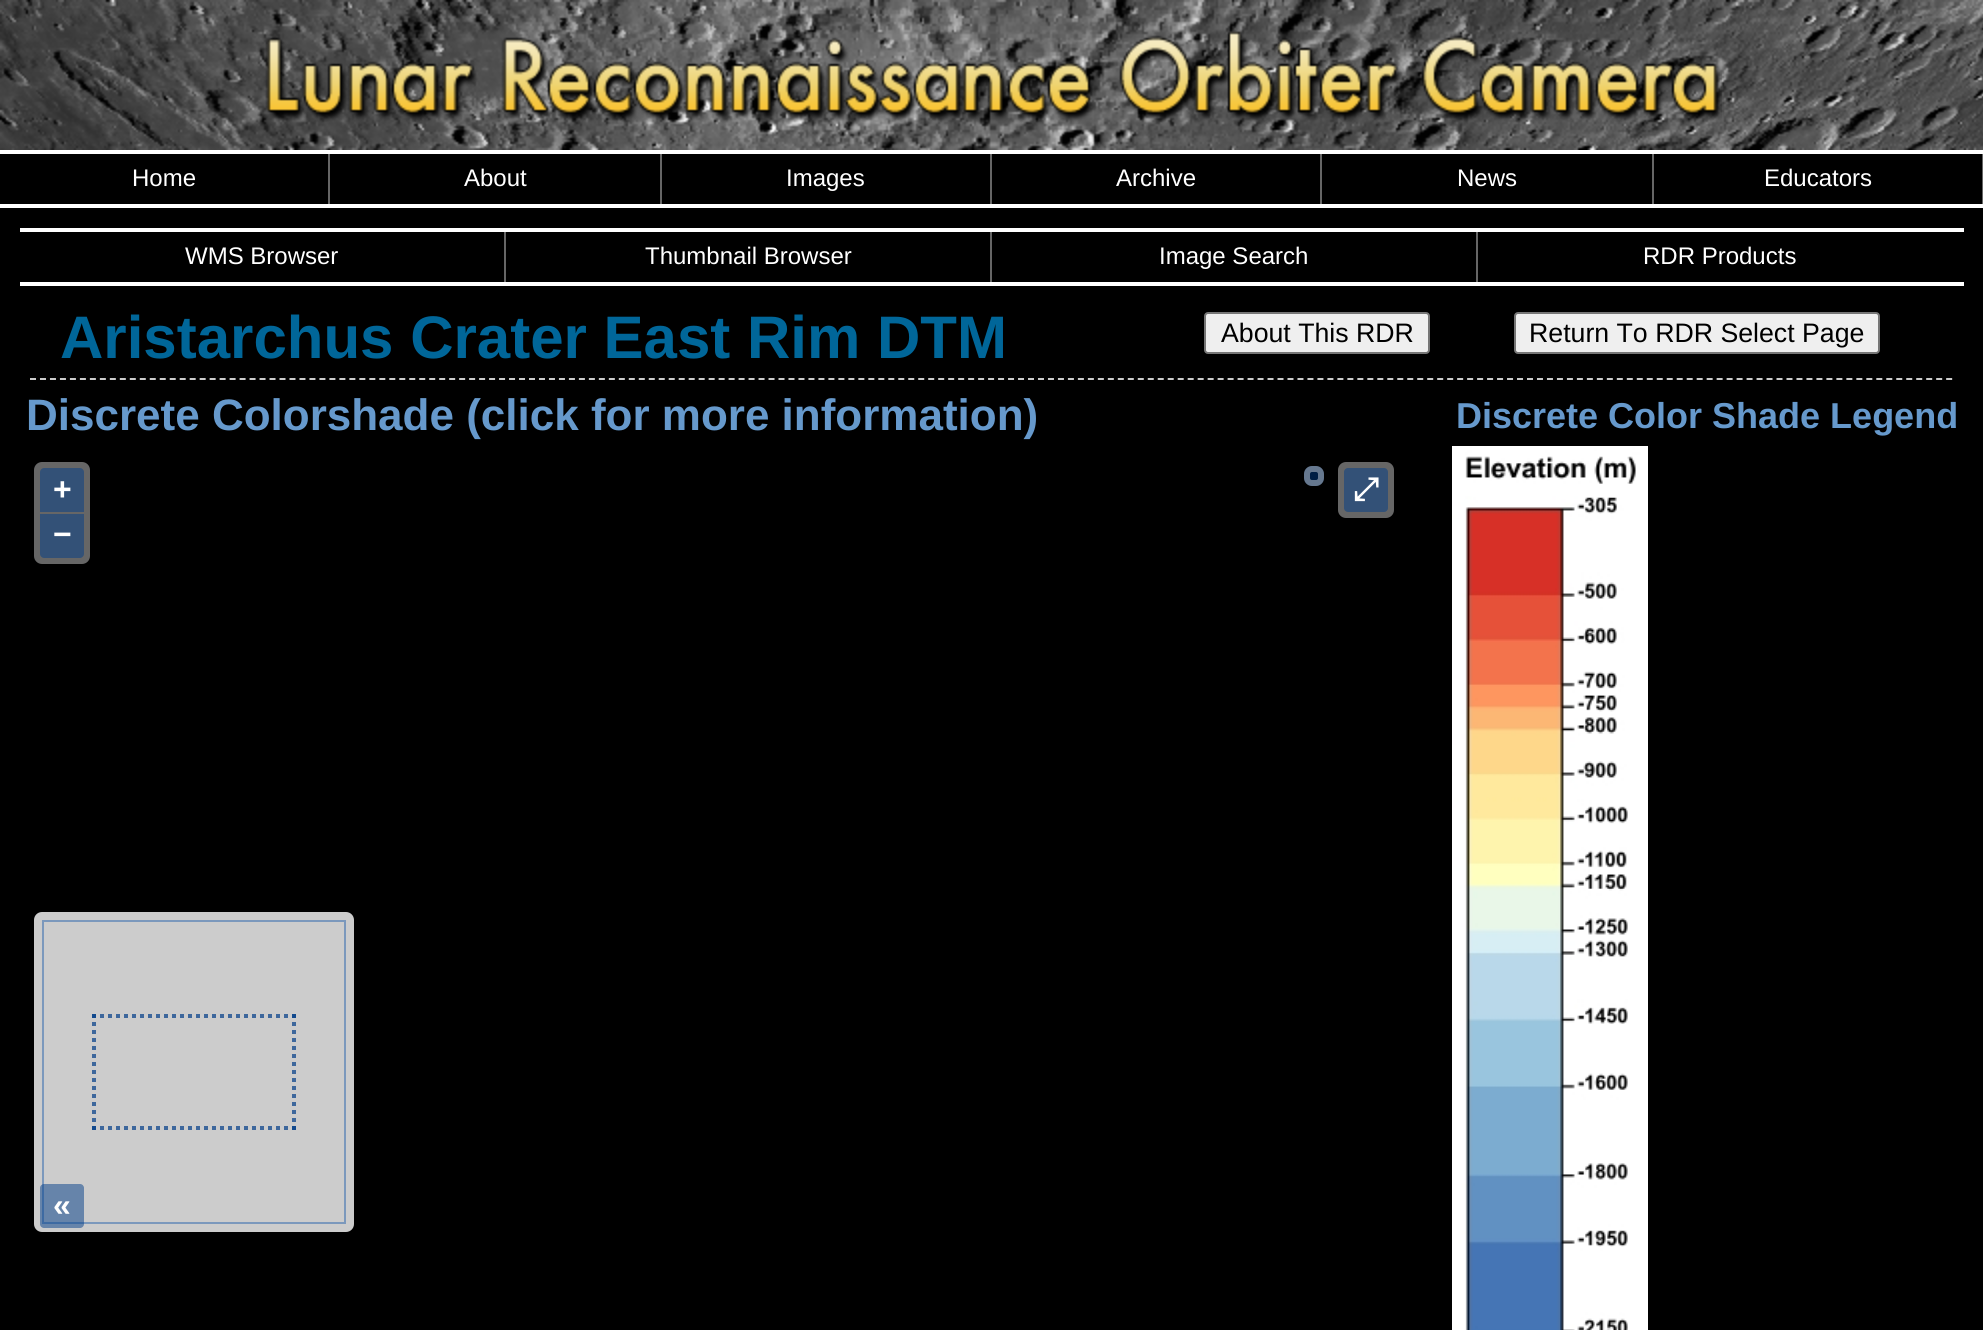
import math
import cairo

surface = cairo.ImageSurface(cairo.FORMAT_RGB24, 1983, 1330)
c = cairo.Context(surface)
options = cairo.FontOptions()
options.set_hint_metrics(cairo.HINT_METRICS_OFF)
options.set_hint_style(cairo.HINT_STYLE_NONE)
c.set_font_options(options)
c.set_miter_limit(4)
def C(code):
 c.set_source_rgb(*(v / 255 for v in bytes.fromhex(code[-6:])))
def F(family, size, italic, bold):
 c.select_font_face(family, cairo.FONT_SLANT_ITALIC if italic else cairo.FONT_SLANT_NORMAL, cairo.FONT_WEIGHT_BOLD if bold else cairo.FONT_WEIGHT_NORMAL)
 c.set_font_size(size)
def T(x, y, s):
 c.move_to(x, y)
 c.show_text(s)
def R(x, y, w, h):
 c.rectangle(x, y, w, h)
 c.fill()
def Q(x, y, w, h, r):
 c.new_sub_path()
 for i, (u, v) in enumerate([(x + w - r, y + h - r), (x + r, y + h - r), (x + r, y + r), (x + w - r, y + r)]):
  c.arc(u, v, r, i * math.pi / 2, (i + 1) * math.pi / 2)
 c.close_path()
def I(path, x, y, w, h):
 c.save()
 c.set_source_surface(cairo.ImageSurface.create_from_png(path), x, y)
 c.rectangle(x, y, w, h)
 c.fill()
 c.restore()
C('000000')
c.paint()
I('1.png',0,0,1983,150)
I('2.png',265,29,1457,93)
C('ffffff')
R(0,150,1983,4)
R(0,204,1983,4)
C('666666')
R(328,154,2,50)
F('Liberation Sans',24,0,0)
C('ffffff')
T(132,186,'Home')
C('666666')
R(660,154,2,50)
C('ffffff')
T(464,186,'About')
C('666666')
R(990,154,2,50)
C('ffffff')
T(786,186,'Images')
C('666666')
R(1320,154,2,50)
C('ffffff')
T(1116,186,'Archive')
C('666666')
R(1652,154,2,50)
C('ffffff')
T(1457,186,'News')
C('666666')
R(1982,154,1,50)
C('ffffff')
T(1764,186,'Educators')
R(20,228,1944,4)
R(20,282,1944,4)
C('666666')
R(504,232,2,50)
C('ffffff')
T(185,264,'WMS Browser')
C('666666')
R(990,232,2,50)
C('ffffff')
T(645,264,'Thumbnail Browser')
C('666666')
R(1476,232,2,50)
C('ffffff')
T(1159,264,'Image Search')
T(1643,264,'RDR Products')
c.new_path()
c.move_to(30,379)
c.line_to(1954,379)
C('cccccc')
c.set_dash([6,3.98])
c.stroke()
F('Liberation Sans',60,0,1)
C('006699')
T(60,358,'Aristarchus Crater East Rim DTM')
C('efefef')
Q(1205,313,224,40,3)
c.fill_preserve()
C('767676')
c.set_dash([])
c.stroke()
F('Liberation Sans',26.7,0,0)
C('000000')
T(1221,342,'About This RDR')
C('efefef')
Q(1515,313,364,40,3)
c.fill_preserve()
C('767676')
c.stroke()
C('000000')
T(1529,342,'Return To RDR Select Page')
F('Liberation Sans',44,0,1)
C('6699cc')
T(26,430,'Discrete Colorshade (click for more information)')
F('Liberation Sans',36,0,1)
T(1456,428,'Discrete Color Shade Legend')
I('3.png',1452,446,196,884)
C('001e44')
Q(1304,466,20,20,8)
c.fill()
Q(1307,469,14,14,5)
c.set_source_rgba(1,1,1,0.4)
c.set_line_width(6)
c.stroke()
C('666666')
Q(34,462,56,102,8)
c.fill()
C('335177')
c.new_path()
c.move_to(44,468)
c.line_to(80,468)
c.curve_to(82,468,84,470,84,472)
c.line_to(84,512)
c.line_to(40,512)
c.line_to(40,472)
c.curve_to(40,470,42,468,44,468)
c.close_path()
c.fill()
F('Liberation Sans',32,0,1)
C('ffffff')
T(53,500,'+')
C('335177')
c.new_path()
c.move_to(40,514)
c.line_to(84,514)
c.line_to(84,554)
c.curve_to(84,556,82,558,80,558)
c.line_to(44,558)
c.curve_to(42,558,40,556,40,554)
c.close_path()
c.fill()
C('ffffff')
T(53,545,'−')
C('666666')
Q(1338,462,56,56,8)
c.fill()
C('335177')
Q(1344,468,44,44,4)
c.fill()
F('FreeSerif',32,0,1)
C('ffffff')
T(1353,500,'⤢')
C('cccccc')
Q(34,912,320,320,8)
c.fill()
c.rectangle(43,921,302,302)
C('7b98bc')
c.set_line_width(2)
c.stroke()
c.new_path()
c.move_to(92,1016)
c.line_to(296,1016)
C('3d679c')
c.set_line_width(4)
c.set_dash([4,4])
c.stroke()
c.new_path()
c.move_to(294,1014)
c.line_to(294,1130)
c.set_source_rgba(0,0.235,0.533,0.7)
c.stroke()
c.new_path()
c.move_to(92,1128)
c.line_to(296,1128)
c.stroke()
c.new_path()
c.move_to(94,1014)
c.line_to(94,1130)
c.stroke()
c.set_source_rgba(0,0.235,0.533,0.5)
Q(40,1184,44,44,4)
c.fill()
F('Liberation Sans',32,0,1)
C('ffffff')
T(53,1216,'«')
surface.write_to_png('o.png')
